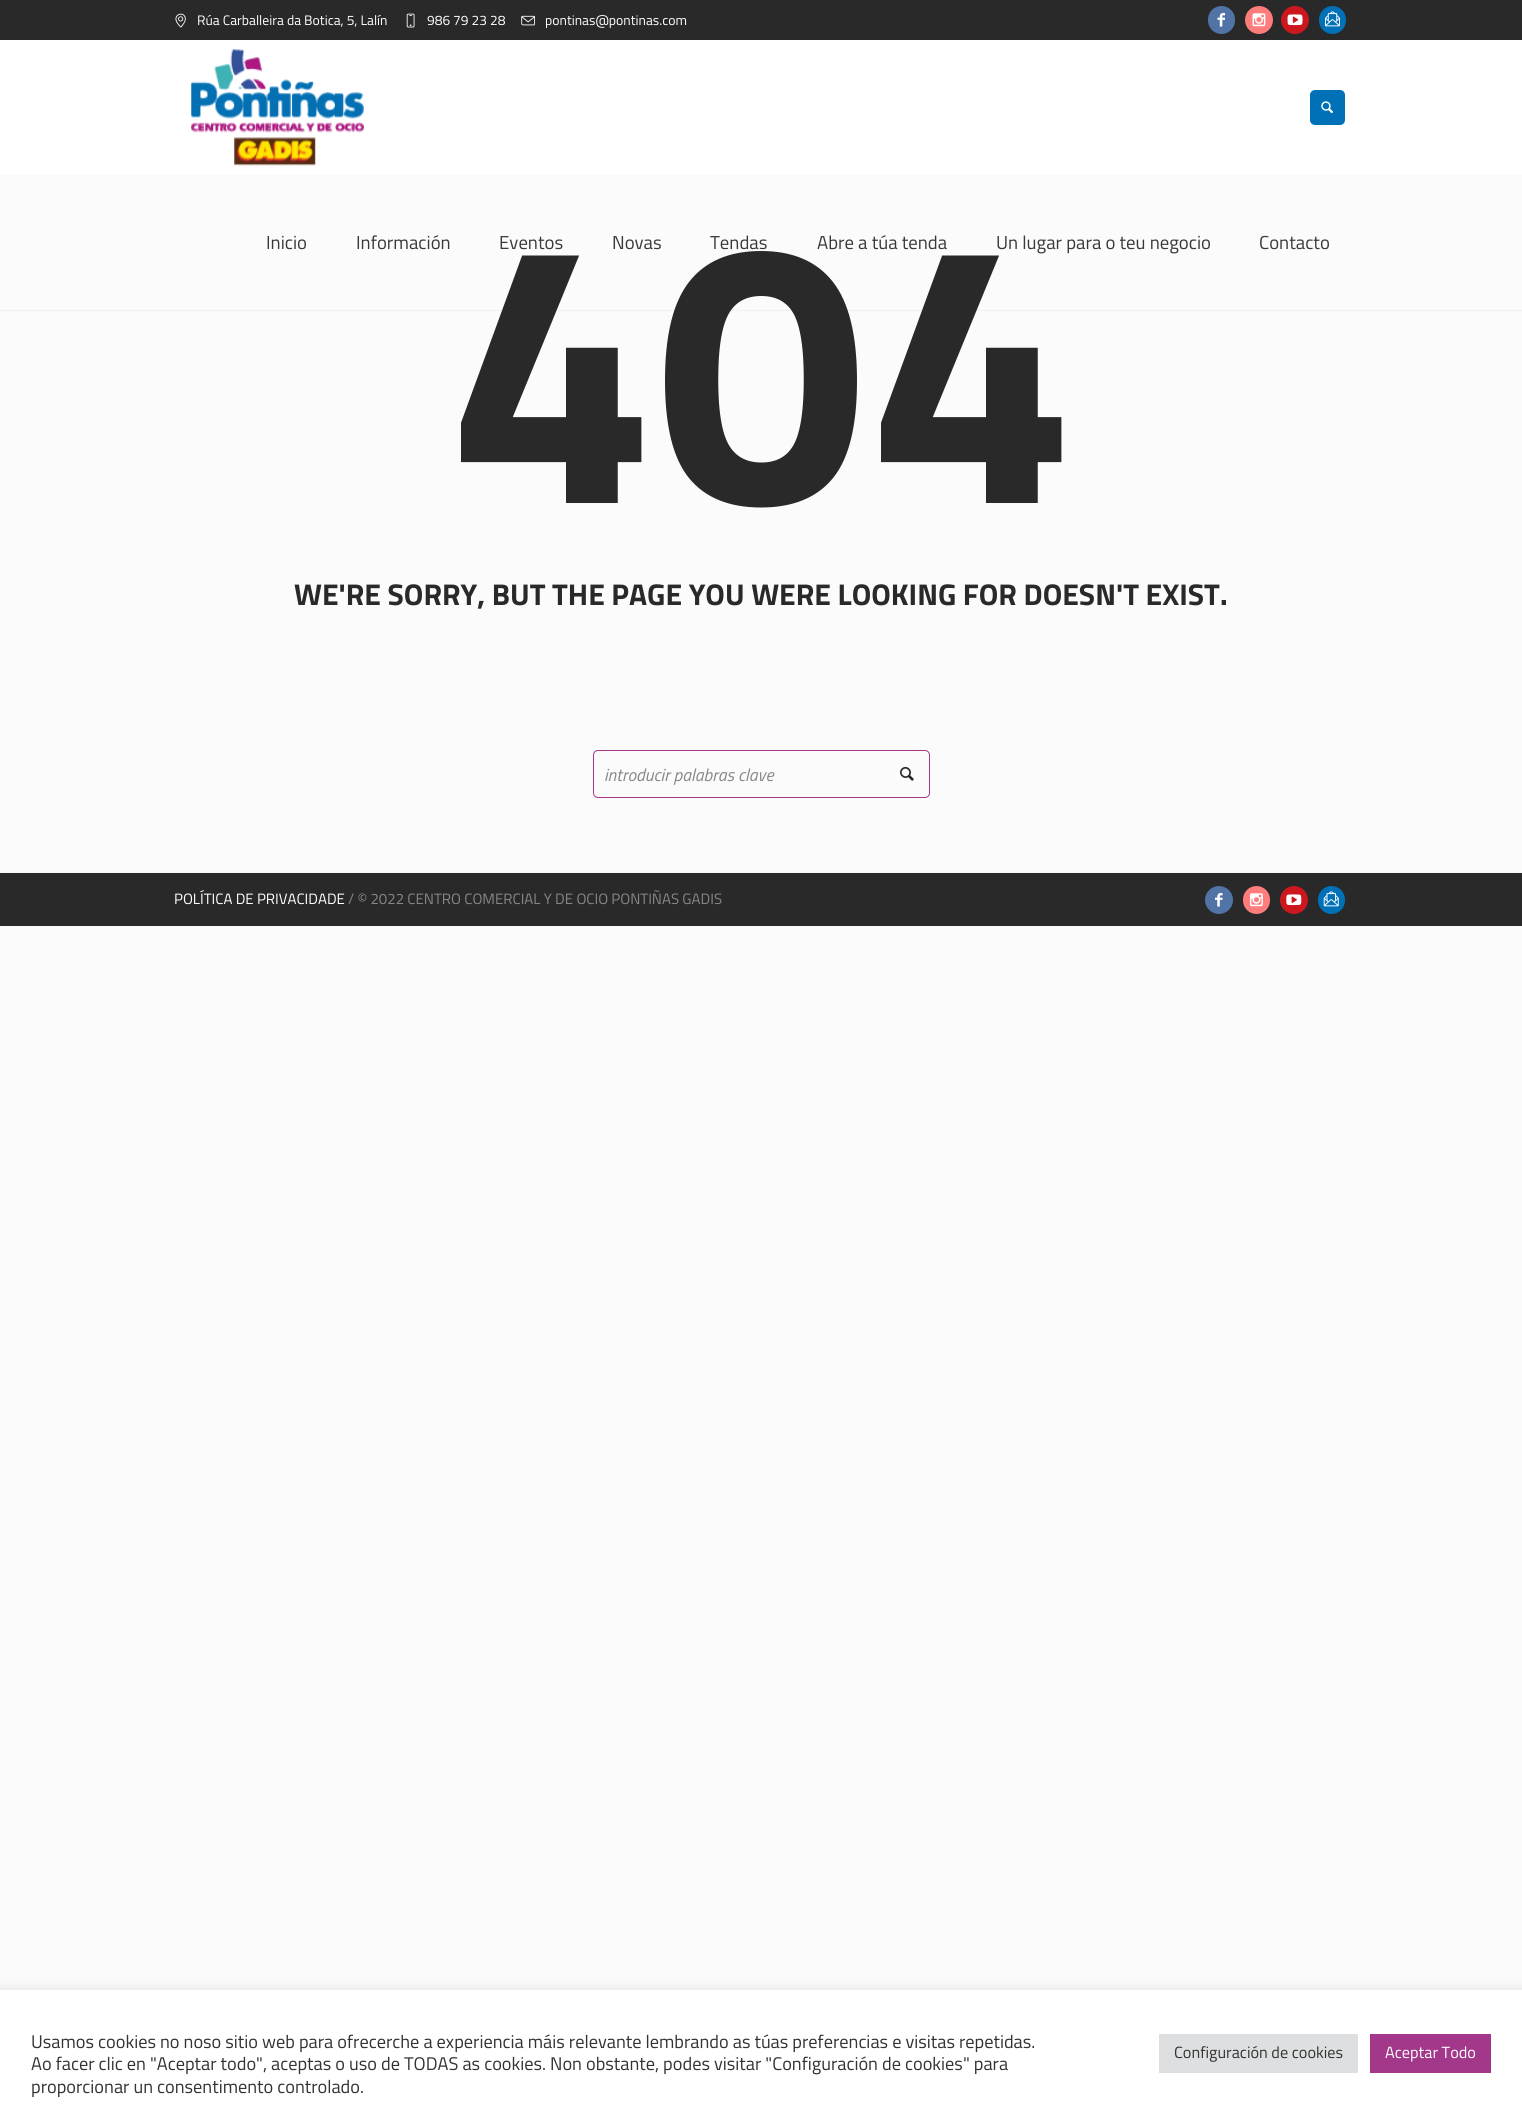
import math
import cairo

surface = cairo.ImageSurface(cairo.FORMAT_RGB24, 1522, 2115)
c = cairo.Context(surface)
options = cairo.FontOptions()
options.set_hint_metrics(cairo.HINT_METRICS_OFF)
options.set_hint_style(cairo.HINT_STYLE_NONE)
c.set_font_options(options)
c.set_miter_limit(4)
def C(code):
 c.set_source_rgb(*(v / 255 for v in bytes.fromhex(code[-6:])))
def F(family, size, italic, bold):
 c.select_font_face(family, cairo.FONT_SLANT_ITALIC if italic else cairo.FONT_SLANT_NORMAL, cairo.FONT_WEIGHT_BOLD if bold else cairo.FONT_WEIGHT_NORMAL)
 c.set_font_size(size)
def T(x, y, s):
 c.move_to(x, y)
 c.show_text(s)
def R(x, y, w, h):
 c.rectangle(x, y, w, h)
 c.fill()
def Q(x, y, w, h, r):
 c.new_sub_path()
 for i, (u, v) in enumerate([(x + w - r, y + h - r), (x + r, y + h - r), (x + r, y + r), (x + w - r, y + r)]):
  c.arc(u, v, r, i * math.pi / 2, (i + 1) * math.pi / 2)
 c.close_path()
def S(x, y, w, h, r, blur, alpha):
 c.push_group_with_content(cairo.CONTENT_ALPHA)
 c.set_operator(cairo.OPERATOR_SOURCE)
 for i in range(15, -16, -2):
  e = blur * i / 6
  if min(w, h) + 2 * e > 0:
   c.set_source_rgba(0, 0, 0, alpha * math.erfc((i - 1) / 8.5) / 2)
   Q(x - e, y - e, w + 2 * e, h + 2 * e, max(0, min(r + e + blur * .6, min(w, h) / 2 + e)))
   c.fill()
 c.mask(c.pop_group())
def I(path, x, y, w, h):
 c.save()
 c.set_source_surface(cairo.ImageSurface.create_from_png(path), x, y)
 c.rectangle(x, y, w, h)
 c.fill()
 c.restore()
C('fbfbfb')
c.paint()
c.save()
c.rectangle(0,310,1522,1)
c.clip()
C('000000')
S(0,1,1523,310,0,.5,.05)
c.restore()
C('292929')
R(0,0,1522,40)
I('1.png',175,13,11,15)
F('Titillium Web',13.75,0,0)
C('ffffff')
T(197,25,'Rúa Carballeira da Botica, 5, Lalín')
I('2.png',406,13,9,15)
T(427,25,'986 79 23 28')
I('3.png',521,15,14,11)
T(545,25,'pontinas@pontinas.com')
C('5173a6')
Q(1208,6,27,28,13.5)
c.fill()
I('4.png',1217,13,8,14)
C('ff7c7c')
c.arc(1259,20,14,0,2 * math.pi)
c.fill()
I('5.png',1252,13,14,14)
C('cc171e')
c.arc(1295,20,14,0,2 * math.pi)
c.fill()
I('6.png',1287,14,16,12)
C('0071b7')
Q(1319,6,27,28,13.5)
c.fill()
I('7.png',1325,11,15,16)
C('ffffff')
R(0,40,1522,135)
I('8.png',191,49,173,117)
C('0071b7')
Q(1310,90,35,35,5)
c.fill()
I('9.png',1321,101,12,13)
F('Titillium Web',18.75,0,0)
C('393939')
T(266,249,'Inicio')
T(356,249,'Información')
T(499,249,'Eventos')
T(612,249,'Novas')
T(710,249,'Tendas')
T(817,249,'Abre a túa tenda')
T(996,249,'Un lugar para o teu negocio')
T(1259,249,'Contacto')
F('Titillium Web',375,0,1)
C('292929')
T(446,503,'404')
F('Titillium Web',30,0,1)
T(294,605,'WE\'RE SORRY, BUT THE PAGE YOU WERE LOOKING FOR DOESN\'T EXIST.')
Q(593.5,750.5,336,47,4.5)
C('a3378a')
c.set_line_width(1)
c.stroke()
F('Titillium Web',17.5,1,0)
C('878787')
T(604,781,'introducir palabras clave')
I('10.png',900,766,14,15)
C('292929')
R(0,873,1522,53)
F('Titillium Web',15,0,0)
C('ffffff')
T(174,904,'POLÍTICA DE PRIVACIDADE')
C('878787')
T(348,904,'/ © 2022 CENTRO COMERCIAL Y DE OCIO PONTIÑAS GADIS')
C('5173a6')
c.new_path()
c.arc(1219,900,14,0,2 * math.pi)
c.fill()
I('11.png',1215,893,8,14)
C('ff7c7c')
Q(1243,886,27,28,13.5)
c.fill()
I('12.png',1250,893,13,14)
C('cc171e')
c.arc(1294,900,14,0,2 * math.pi)
c.fill()
I('13.png',1286,894,16,12)
C('0071b7')
Q(1318,886,27,28,13.5)
c.fill()
I('14.png',1323,891,16,16)
C('acabab')
S(0,1989,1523,125,0,6,.3)
C('ffffff')
R(0,1990,1522,125)
F('Titillium Web',18.33,0,0)
C('333333')
T(31,2048,'Usamos cookies no noso sitio web para ofrecerche a experiencia máis relevante lembrando as túas preferencias e visitas repetidas.')
T(31,2070,'Ao facer clic en "Aceptar todo", aceptas o uso de TODAS as cookies. Non obstante, podes visitar "Configuración de cookies" para')
T(31,2093,'proporcionar un consentimento controlado.')
C('dedfe0')
R(1159,2034,199,39)
F('Titillium Web',16.25,0,0)
C('333333')
T(1174,2058,'Configuración de cookies')
C('a3378a')
R(1370,2034,121,39)
C('ffffff')
T(1385,2058,'Aceptar Todo')
surface.write_to_png('o.png')
